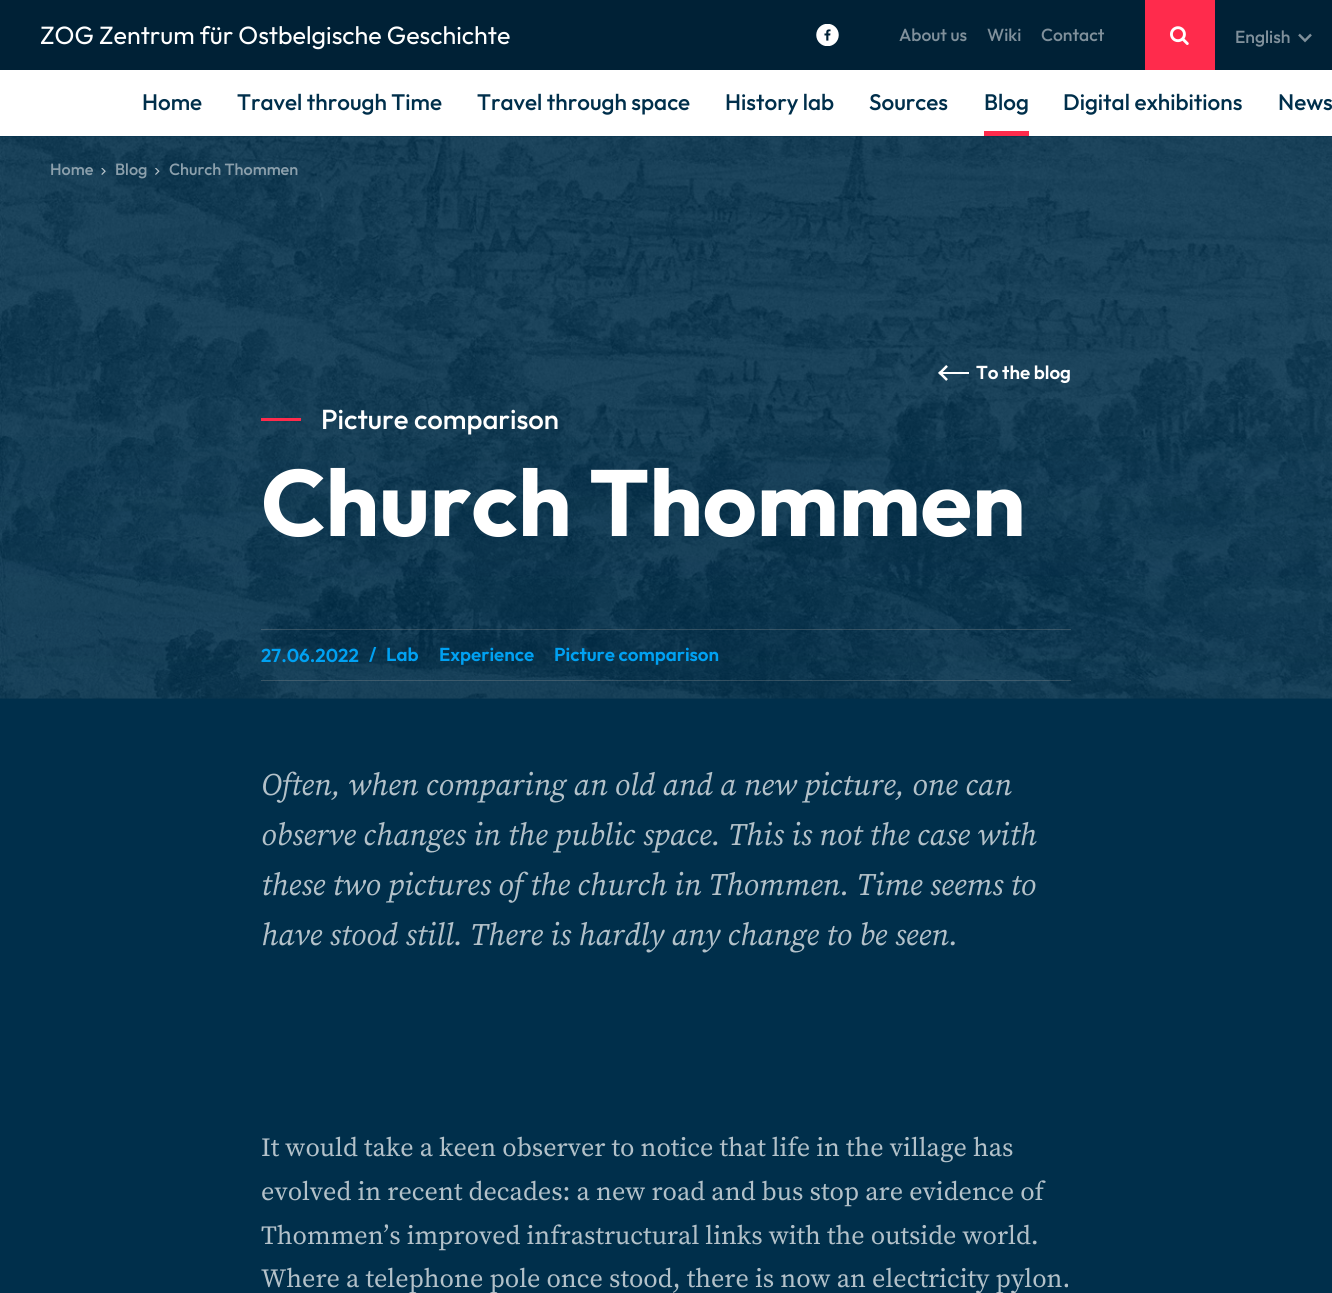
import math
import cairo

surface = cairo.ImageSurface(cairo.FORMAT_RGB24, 1332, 1293)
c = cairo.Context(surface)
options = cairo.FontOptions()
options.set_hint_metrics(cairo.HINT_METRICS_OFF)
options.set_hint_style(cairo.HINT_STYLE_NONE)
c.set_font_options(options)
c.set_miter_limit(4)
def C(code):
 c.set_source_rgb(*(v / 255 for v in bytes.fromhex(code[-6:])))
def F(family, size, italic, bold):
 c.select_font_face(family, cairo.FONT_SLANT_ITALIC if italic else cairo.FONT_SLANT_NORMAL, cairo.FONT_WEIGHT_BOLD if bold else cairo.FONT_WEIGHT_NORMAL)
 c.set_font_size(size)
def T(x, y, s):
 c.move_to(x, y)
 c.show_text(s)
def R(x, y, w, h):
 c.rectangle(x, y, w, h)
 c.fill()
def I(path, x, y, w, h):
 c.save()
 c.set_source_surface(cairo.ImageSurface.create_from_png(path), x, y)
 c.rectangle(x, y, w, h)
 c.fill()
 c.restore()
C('002f4b')
c.paint()
C('ffffff')
R(0,70,1332,66)
C('002136')
R(0,0,1332,70)
F('Outfit',25,0,0)
C('ffffff')
T(40,44,'ZOG Zentrum für Ostbelgische Geschichte')
I('1.png',816,24,23,22)
F('Outfit Medium',17.5,0,0)
C('80909b')
T(899,41,'About us')
T(987,41,'Wiki')
T(1041,41,'Contact')
C('ff2b4c')
R(1145,0,70,70)
I('2.png',1170,26,19,19)
C('80909b')
T(1235,43,'English')
I('3.png',1298,33,14,10)
F('Outfit Medium',22.5,0,0)
C('002f4b')
T(142,110,'Home')
T(237,110,'Travel through Time')
T(477,110,'Travel through space')
T(725,110,'History lab')
T(869,110,'Sources')
T(984,110,'Blog')
C('ff2b4c')
R(984,131,45,5)
C('002f4b')
T(1063,110,'Digital exhibitions')
T(1278,110,'News')
I('4.png',0,136,1332,563)
gradient = cairo.LinearGradient(666,136,666,699)
gradient.add_color_stop_rgba(0,0,0.184,0.294,0)
gradient.add_color_stop_rgba(1,0,0.184,0.294,.15)
c.set_source(gradient)
R(0,437,1332,262)
F('Outfit Medium',16.25,0,0)
C('8ca0ac')
T(50,175,'Home')
I('5.png',101,168,5,7)
T(115,175,'Blog')
I('6.png',155,168,5,7)
T(169,175,'Church Thommen')
I('7.png',938,365,31,16)
F('Outfit SemiBold',18.75,0,0)
C('ffffff')
T(976,379,'To the blog')
C('ff2b4c')
R(261,418,40,3)
F('Outfit Medium',27.5,0,0)
C('ffffff')
T(321,429,'Picture comparison')
F('Outfit',93.75,0,1)
T(261,536,'Church Thommen')
c.set_source_rgba(0.596,0.596,0.596,0.3)
R(261,629,810,1)
R(261,680,810,1)
F('Outfit SemiBold',18.75,0,0)
C('00a1f2')
T(261,662,'27.06.2022')
T(369,661,'/')
T(386,661,'Lab')
T(439,661,'Experience')
T(554,661,'Picture comparison')
F('Source Serif Pro',31.25,1,0)
C('b3c1c9')
T(261,795,'Often, when comparing an old and a new picture, one can')
T(261,845,'observe changes in the public space. This is not the case with')
T(261,895,'these two pictures of the church in Thommen. Time seems to')
T(261,945,'have stood still. There is hardly any change to be seen.')
F('Source Serif Pro',26.25,0,0)
T(261,1156,'It would take a keen observer to notice that life in the village has')
T(261,1200,'evolved in recent decades: a new road and bus stop are evidence of')
T(261,1244,'Thommen’s improved infrastructural links with the outside world.')
T(261,1287,'Where a telephone pole once stood, there is now an electricity pylon.')
surface.write_to_png('o.png')
